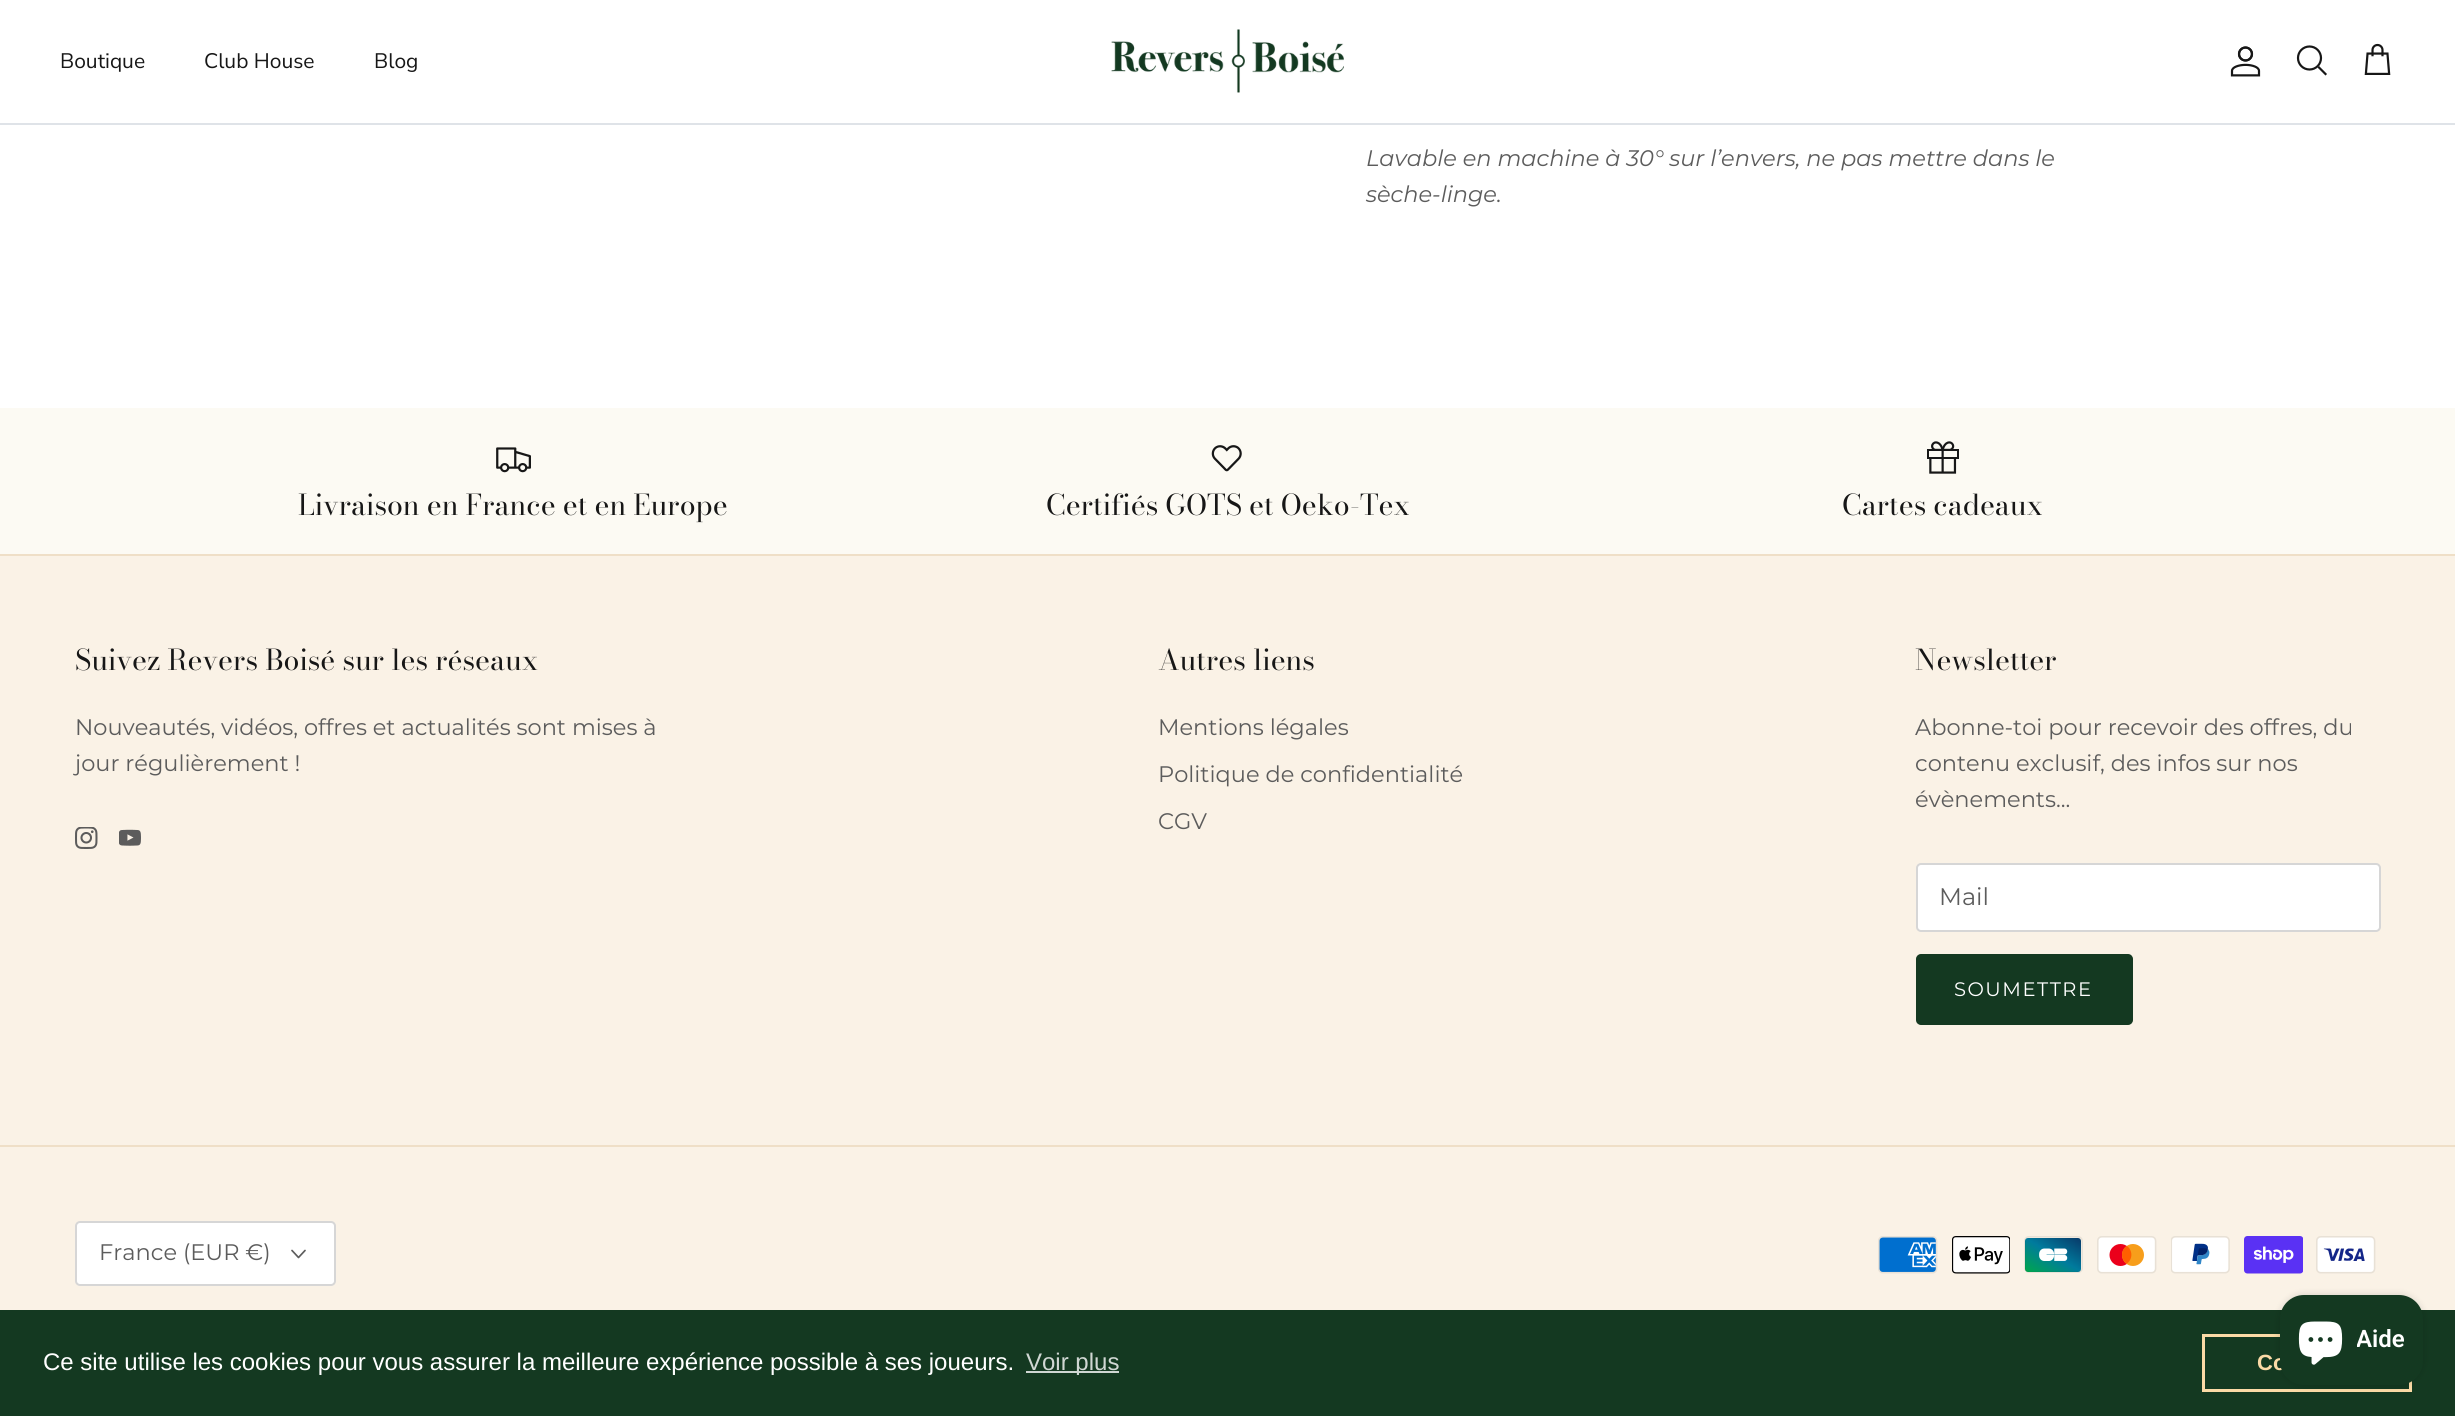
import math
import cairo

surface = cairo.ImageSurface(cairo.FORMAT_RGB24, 2455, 1416)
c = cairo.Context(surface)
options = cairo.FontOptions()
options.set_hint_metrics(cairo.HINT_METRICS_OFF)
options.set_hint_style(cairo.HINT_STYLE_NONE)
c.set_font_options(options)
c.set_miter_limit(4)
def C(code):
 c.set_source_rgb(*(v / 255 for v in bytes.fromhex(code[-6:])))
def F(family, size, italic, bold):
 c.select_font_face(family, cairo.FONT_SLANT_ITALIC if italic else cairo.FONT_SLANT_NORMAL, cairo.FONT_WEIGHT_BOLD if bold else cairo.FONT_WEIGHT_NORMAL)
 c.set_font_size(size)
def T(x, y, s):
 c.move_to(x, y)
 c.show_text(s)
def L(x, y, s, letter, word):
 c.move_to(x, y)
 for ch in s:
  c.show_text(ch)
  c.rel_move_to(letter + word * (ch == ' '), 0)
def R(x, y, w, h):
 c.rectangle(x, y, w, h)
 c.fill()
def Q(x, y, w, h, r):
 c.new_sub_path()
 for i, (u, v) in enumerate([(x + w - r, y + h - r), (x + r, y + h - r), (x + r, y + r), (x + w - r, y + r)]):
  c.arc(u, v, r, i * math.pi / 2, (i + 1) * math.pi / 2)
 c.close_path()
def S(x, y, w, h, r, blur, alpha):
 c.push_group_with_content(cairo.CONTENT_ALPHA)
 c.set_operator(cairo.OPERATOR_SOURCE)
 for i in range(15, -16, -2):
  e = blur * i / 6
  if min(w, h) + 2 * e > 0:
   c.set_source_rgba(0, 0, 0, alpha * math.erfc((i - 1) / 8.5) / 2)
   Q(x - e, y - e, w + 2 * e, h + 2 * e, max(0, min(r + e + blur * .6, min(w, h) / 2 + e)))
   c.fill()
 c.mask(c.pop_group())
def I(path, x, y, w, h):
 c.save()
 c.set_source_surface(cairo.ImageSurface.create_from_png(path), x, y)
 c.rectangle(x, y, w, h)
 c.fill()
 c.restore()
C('ffffff')
c.paint()
C('dfe3e8')
R(0,123,2455,2)
F('Nunito Sans',21,0,0)
C('171717')
T(60,68,'Boutique')
T(204,68,'Club House')
T(374,68,'Blog')
I('1.png',1111,29,233,64)
I('2.png',2230,46,31,31)
c.arc(2309.5,58,11.5,0,2 * math.pi)
c.set_line_width(2.2)
c.stroke()
c.new_path()
c.move_to(2319,67.5)
c.line_to(2325.5,74)
c.set_line_cap(cairo.LINE_CAP_SQUARE)
c.stroke()
I('3.png',2364,43,27,32)
F('Montserrat',22.5,1,0)
C('5c5c5c')
T(1366,166,'Lavable en machine à 30° sur l’envers, ne pas mettre dans le')
T(1366,202,'sèche-linge.')
C('faf2e6')
R(0,556,2455,754)
C('fcfaf3')
R(0,408,2455,146)
I('4.png',496,447,35,26)
F('Bodoni Moda',28.5,0,0)
C('171717')
T(298,515,'Livraison en France et en Europe')
I('5.png',1211,445,31,27)
T(1046,515,'Certifiés GOTS et Oeko-Tex')
I('6.png',1927,441,32,33)
T(1842,515,'Cartes cadeaux')
C('efdfc7')
R(0,554,2455,2)
C('171717')
T(75,670,'Suivez Revers Boisé sur les réseaux')
F('Montserrat',22.5,0,0)
C('5c5c5c')
T(75,735,'Nouveautés, vidéos, offres et actualités sont mises à')
T(75,771,'jour régulièrement !')
I('7.png',75,827,23,22)
I('8.png',119,829,22,17)
F('Bodoni Moda',28.5,0,0)
C('171717')
T(1158,670,'Autres liens')
F('Montserrat',22.5,0,0)
C('5c5c5c')
T(1158,735,'Mentions légales')
T(1158,782,'Politique de confidentialité')
T(1158,829,'CGV')
F('Bodoni Moda',28.5,0,0)
C('171717')
T(1915,670,'Newsletter')
F('Montserrat',22.5,0,0)
C('5c5c5c')
T(1915,735,'Abonne-toi pour recevoir des offres, du')
T(1915,771,'contenu exclusif, des infos sur nos')
T(1915,807,'évènements...')
C('ffffff')
Q(1917,864,463,67,4)
c.fill_preserve()
C('d6d6d6')
c.set_line_width(2)
c.set_line_cap(cairo.LINE_CAP_BUTT)
c.stroke()
F('Montserrat',24,0,0)
C('5c5c5c')
T(1939,905,'Mail')
C('143921')
Q(1917,955,215,69,4)
c.fill_preserve()
c.stroke()
F('Montserrat',19.5,0,0)
C('ffffff')
L(1954,996,'SOUMETTRE',1.5,0)
C('efdfc7')
R(0,1145,2455,2)
C('ffffff')
Q(76,1222,259,63,4)
c.fill_preserve()
C('d6d6d6')
c.stroke()
F('Montserrat',22.5,0,0)
C('5c5c5c')
T(99,1260,'France (EUR €)')
c.new_path()
c.move_to(292,1250.5)
c.line_to(298.5,1257.5)
c.line_to(305,1250.5)
c.set_line_width(1.7)
c.set_line_cap(cairo.LINE_CAP_ROUND)
c.set_line_join(cairo.LINE_JOIN_ROUND)
c.stroke()
I('9.png',1878,1236,60,38)
I('10.png',1952,1236,58,38)
I('11.png',2024,1236,59,37)
I('12.png',2097,1236,60,38)
I('13.png',2171,1236,59,38)
I('14.png',2244,1236,59,38)
I('15.png',2316,1236,60,38)
C('143921')
R(0,1310,2455,106)
c.rectangle(2203.5,1335.5,207,55)
C('fbdaa6')
c.set_line_width(3)
c.set_line_cap(cairo.LINE_CAP_BUTT)
c.set_line_join(cairo.LINE_JOIN_MITER)
c.stroke()
C('000000')
S(2280,1295,143,90,24,4,.15)
F('Liberation Sans',22,0,1)
C('fbdaa6')
T(2257,1370,'Co')
C('143921')
Q(2280,1295,143,90,24)
c.fill()
I('16.png',2298,1321,45,44)
c.save()
c.rectangle(2357,1317,48,45)
c.clip()
F('Roboto SemiBold',24,0,0)
C('ffffff')
T(2356,1347,'Aide')
c.restore()
F('Liberation Sans',24,0,0)
C('ffffff')
T(43,1370,'Ce site utilise les cookies pour vous assurer la meilleure expérience possible à ses joueurs.')
C('d0d7d3')
R(1026,1371,93,2)
T(1026,1370,'Voir plus')
surface.write_to_png('o.png')
